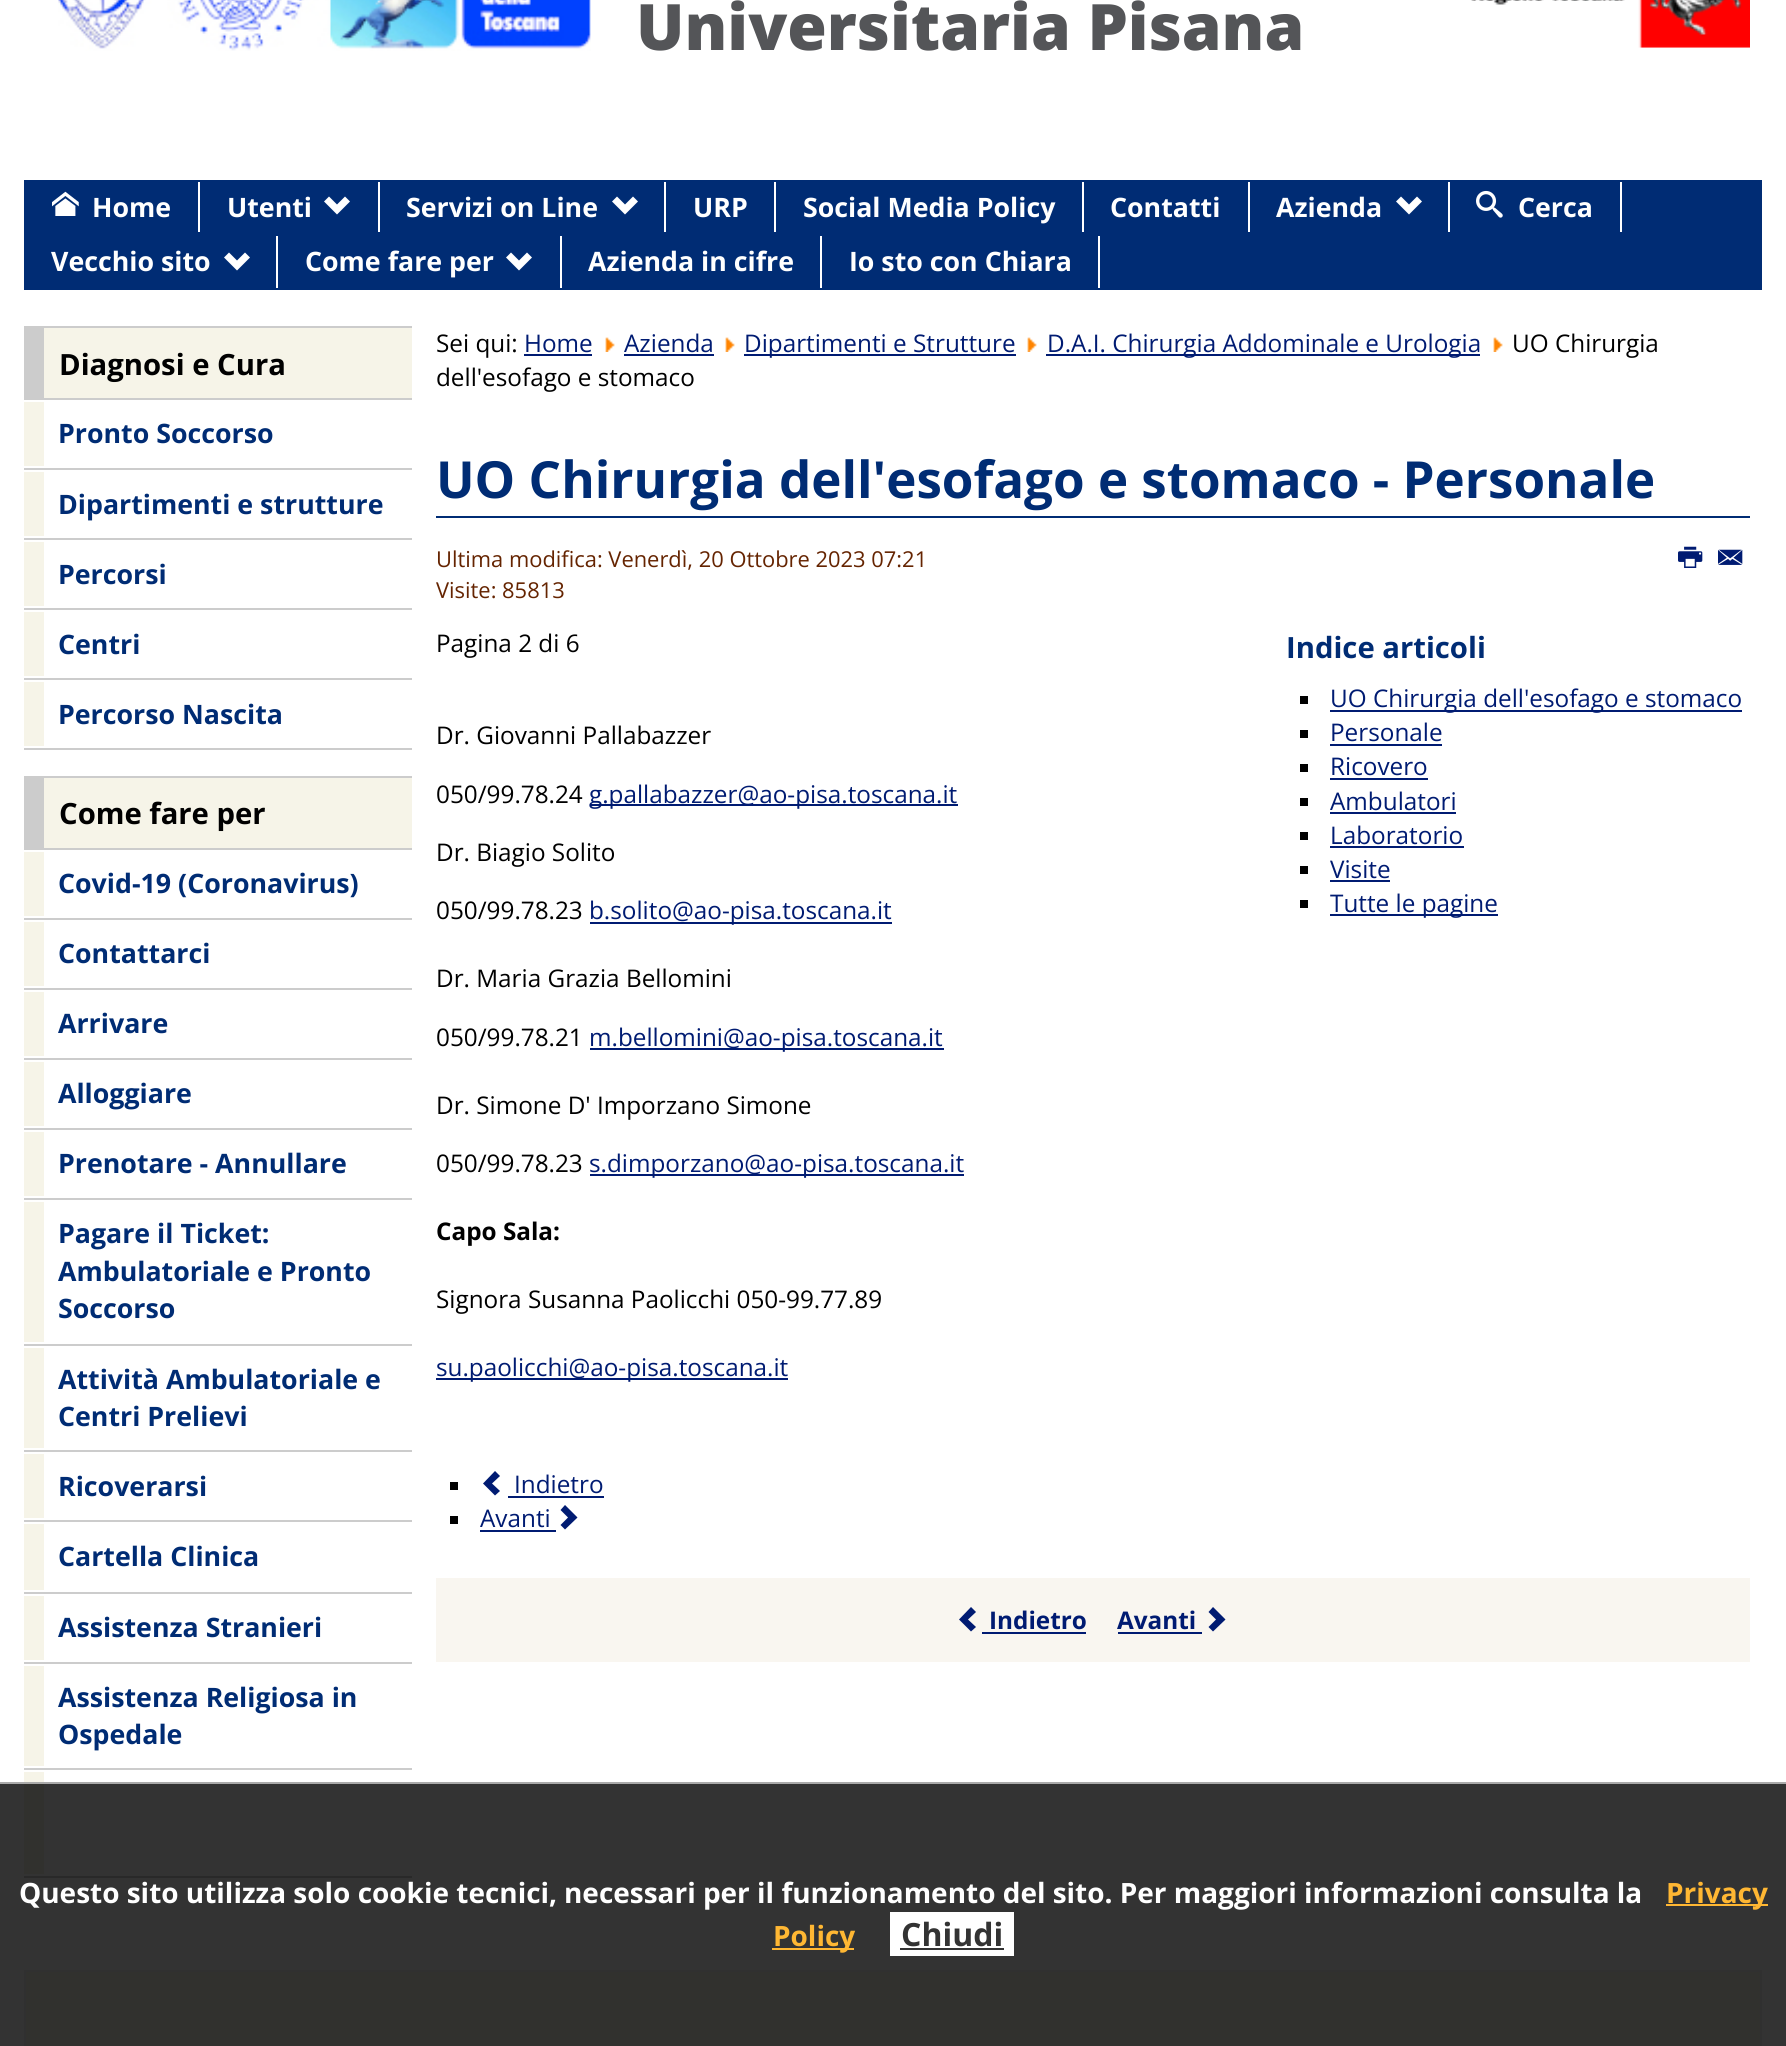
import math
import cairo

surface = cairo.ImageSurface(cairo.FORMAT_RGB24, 1786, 2046)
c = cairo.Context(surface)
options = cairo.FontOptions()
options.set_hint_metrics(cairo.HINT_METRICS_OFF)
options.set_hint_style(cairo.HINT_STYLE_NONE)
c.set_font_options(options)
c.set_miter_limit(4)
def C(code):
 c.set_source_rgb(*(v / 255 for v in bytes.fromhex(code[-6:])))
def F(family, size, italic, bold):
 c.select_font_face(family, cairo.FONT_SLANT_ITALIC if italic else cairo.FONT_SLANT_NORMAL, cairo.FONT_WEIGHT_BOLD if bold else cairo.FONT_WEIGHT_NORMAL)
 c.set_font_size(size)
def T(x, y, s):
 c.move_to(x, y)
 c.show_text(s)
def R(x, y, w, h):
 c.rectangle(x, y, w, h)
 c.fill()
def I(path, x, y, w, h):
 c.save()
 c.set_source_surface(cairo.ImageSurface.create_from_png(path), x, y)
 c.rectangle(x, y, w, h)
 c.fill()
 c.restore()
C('ffffff')
c.paint()
I('1.png',58,0,533,51)
F('Open Sans ExtraBold',64,0,0)
C('545558')
T(636,50,'Universitaria Pisana')
I('2.png',1471,0,279,48)
C('002c74')
R(24,180,1738,110)
C('ffffff')
R(198,182,2,50)
I('3.png',52,191,27,25)
F('Open Sans',26.75,0,1)
T(92,217,'Home')
R(378,182,2,50)
T(227,217,'Utenti')
c.new_path()
c.move_to(350,201.5)
c.line_to(337,214.5)
c.line_to(324,201.5)
c.line_to(329,196.5)
c.line_to(337,204.5)
c.line_to(345,196.5)
c.close_path()
c.fill()
R(664,182,2,50)
T(406,217,'Servizi on Line')
c.new_path()
c.move_to(638,201.5)
c.line_to(625,214.5)
c.line_to(612,201.5)
c.line_to(617,196.5)
c.line_to(625,204.5)
c.line_to(633,196.5)
c.close_path()
c.fill()
R(774,182,2,50)
T(693,217,'URP')
R(1082,182,2,50)
T(803,217,'Social Media Policy')
R(1248,182,2,50)
T(1110,217,'Contatti')
R(1448,182,2,50)
T(1276,217,'Azienda')
c.new_path()
c.move_to(1422,201.5)
c.line_to(1409,214.5)
c.line_to(1396,201.5)
c.line_to(1401,196.5)
c.line_to(1409,204.5)
c.line_to(1417,196.5)
c.close_path()
c.fill()
R(1620,182,2,50)
I('4.png',1476,190,27,28)
T(1518,217,'Cerca')
R(276,236,2,52)
T(51,271,'Vecchio sito')
c.new_path()
c.move_to(250,257.5)
c.line_to(237,270.5)
c.line_to(224,257.5)
c.line_to(229,252.5)
c.line_to(237,260.5)
c.line_to(245,252.5)
c.close_path()
c.fill()
R(560,236,2,52)
T(305,271,'Come fare per')
c.new_path()
c.move_to(532,257.5)
c.line_to(519,270.5)
c.line_to(506,257.5)
c.line_to(511,252.5)
c.line_to(519,260.5)
c.line_to(527,252.5)
c.close_path()
c.fill()
R(820,236,2,52)
T(588,271,'Azienda in cifre')
R(1098,236,2,52)
T(849,271,'Io sto con Chiara')
C('f6f4e8')
R(44,328,368,70)
C('cccccc')
R(44,326,368,2)
R(44,398,368,2)
R(24,326,20,74)
F('Open Sans',29.25,0,1)
C('000000')
T(59,375,'Diagnosi e Cura')
C('cccccc')
R(24,468,388,2)
C('f6f4e8')
R(24,402,20,64)
F('Open Sans',26.75,0,1)
C('002c74')
T(58,443,'Pronto Soccorso')
C('cccccc')
R(24,538,388,2)
C('f6f4e8')
R(24,472,20,64)
C('002c74')
T(58,514,'Dipartimenti e strutture')
C('cccccc')
R(24,608,388,2)
C('f6f4e8')
R(24,542,20,64)
C('002c74')
T(58,584,'Percorsi')
C('cccccc')
R(24,678,388,2)
C('f6f4e8')
R(24,612,20,64)
C('002c74')
T(58,654,'Centri')
C('cccccc')
R(24,748,388,2)
C('f6f4e8')
R(24,682,20,64)
C('002c74')
T(58,724,'Percorso Nascita')
C('f6f4e8')
R(44,778,368,70)
C('cccccc')
R(44,776,368,2)
R(44,848,368,2)
R(24,776,20,74)
F('Open Sans',29.25,0,1)
C('000000')
T(59,824,'Come fare per')
C('cccccc')
R(24,918,388,2)
C('f6f4e8')
R(24,852,20,64)
F('Open Sans',26.75,0,1)
C('002c74')
T(58,893,'Covid-19 (Coronavirus)')
C('cccccc')
R(24,988,388,2)
C('f6f4e8')
R(24,922,20,64)
C('002c74')
T(58,963,'Contattarci')
C('cccccc')
R(24,1058,388,2)
C('f6f4e8')
R(24,992,20,64)
C('002c74')
T(58,1033,'Arrivare')
C('cccccc')
R(24,1128,388,2)
C('f6f4e8')
R(24,1062,20,64)
C('002c74')
T(58,1103,'Alloggiare')
C('cccccc')
R(24,1198,388,2)
C('f6f4e8')
R(24,1132,20,64)
C('002c74')
T(58,1173,'Prenotare - Annullare')
C('cccccc')
R(24,1344,388,2)
C('f6f4e8')
R(24,1202,20,140)
C('002c74')
T(58,1243,'Pagare il Ticket:')
T(58,1281,'Ambulatoriale e Pronto')
T(58,1318,'Soccorso')
C('cccccc')
R(24,1450,388,2)
C('f6f4e8')
R(24,1348,20,100)
C('002c74')
T(58,1389,'Attività Ambulatoriale e')
T(58,1426,'Centri Prelievi')
C('cccccc')
R(24,1520,388,2)
C('f6f4e8')
R(24,1454,20,64)
C('002c74')
T(58,1496,'Ricoverarsi')
C('cccccc')
R(24,1592,388,2)
C('f6f4e8')
R(24,1524,20,66)
C('002c74')
T(58,1566,'Cartella Clinica')
C('cccccc')
R(24,1662,388,2)
C('f6f4e8')
R(24,1596,20,64)
C('002c74')
T(58,1637,'Assistenza Stranieri')
C('cccccc')
R(24,1768,388,2)
C('f6f4e8')
R(24,1666,20,100)
C('002c74')
T(58,1707,'Assistenza Religiosa in')
T(58,1744,'Ospedale')
C('cccccc')
R(24,1876,388,2)
C('f6f4e8')
R(24,1772,20,102)
F('Open Sans',24.3,0,0)
C('000000')
T(436,352,'Sei qui:')
C('001b72')
T(524,352,'Home')
R(524,354,68,2)
I('5.png',605,337,10,15)
T(624,352,'Azienda')
R(624,354,90,2)
I('5.png',725,337,10,15)
R(744,354,272,2)
T(744,352,'Dipartimenti e Strutture')
I('5.png',1027,337,10,15)
R(1046,354,434,2)
T(1047,352,'D.A.I. Chirurgia Addominale e Urologia')
I('5.png',1493,337,10,15)
C('000000')
T(1512,352,'UO Chirurgia')
T(436,386,'dell\'esofago e stomaco')
C('002c74')
R(436,516,1314,2)
F('Open Sans',51.1,0,1)
T(436,498,'UO Chirurgia dell\'esofago e stomaco - Personale')
F('Open Sans',21.9,0,0)
C('652401')
T(436,567,'Ultima modifica: Venerdì, 20 Ottobre 2023 07:21')
T(436,598,'Visite: 85813')
I('6.png',1678,546,25,22)
I('7.png',1718,549,25,16)
F('Open Sans',24.3,0,0)
C('000000')
T(436,652,'Pagina 2 di 6')
T(436,744,'Dr. Giovanni Pallabazzer')
T(436,803,'050/99.78.24')
C('001b72')
R(590,804,368,2)
T(589,803,'g.pallabazzer@ao-pisa.toscana.it')
C('000000')
T(436,861,'Dr. Biagio Solito')
T(436,919,'050/99.78.23')
C('001b72')
R(590,922,302,2)
T(589,919,'b.solito@ao-pisa.toscana.it')
C('000000')
T(436,987,'Dr. Maria Grazia Bellomini')
T(436,1046,'050/99.78.21')
C('001b72')
R(590,1048,354,2)
T(589,1046,'m.bellomini@ao-pisa.toscana.it')
C('000000')
T(436,1114,'Dr. Simone D\' Imporzano Simone')
T(436,1172,'050/99.78.23')
C('001b72')
R(590,1174,374,2)
T(589,1172,'s.dimporzano@ao-pisa.toscana.it')
F('Open Sans',24.3,0,1)
C('000000')
T(436,1240,'Capo Sala:')
F('Open Sans',24.3,0,0)
T(436,1308,'Signora Susanna Paolicchi 050-99.77.89')
C('001b72')
R(436,1378,352,2)
T(436,1376,'su.paolicchi@ao-pisa.toscana.it')
C('000000')
R(450,1482,8,8)
C('001b72')
c.new_path()
c.move_to(495,1495.5)
c.line_to(483,1483.5)
c.line_to(495,1471)
c.line_to(500,1476)
c.line_to(492,1483.5)
c.line_to(500,1491)
c.close_path()
c.fill()
T(514,1493,'Indietro')
R(508,1496,96,2)
C('000000')
R(450,1516,8,8)
C('001b72')
T(480,1527,'Avanti')
R(480,1530,76,2)
c.new_path()
c.move_to(565,1505)
c.line_to(577.5,1517.5)
c.line_to(565,1529.5)
c.line_to(560.5,1525)
c.line_to(568,1517.5)
c.line_to(560.5,1510)
c.close_path()
c.fill()
F('Open Sans',29.25,0,1)
C('002c74')
T(1286,658,'Indice articoli')
C('000000')
R(1300,696,8,8)
C('001b72')
R(1330,710,412,2)
F('Open Sans',24.3,0,0)
T(1330,707,'UO Chirurgia dell\'esofago e stomaco')
C('000000')
R(1300,730,8,8)
C('001b72')
T(1330,741,'Personale')
R(1330,744,112,2)
C('000000')
R(1300,764,8,8)
C('001b72')
T(1330,775,'Ricovero')
R(1330,778,98,2)
C('000000')
R(1300,798,8,8)
C('001b72')
T(1330,810,'Ambulatori')
R(1330,812,126,2)
C('000000')
R(1300,832,8,8)
C('001b72')
T(1330,844,'Laboratorio')
R(1330,846,134,2)
C('000000')
R(1300,866,8,8)
C('001b72')
T(1330,878,'Visite')
R(1330,880,60,2)
C('000000')
R(1300,900,8,8)
C('001b72')
R(1330,914,168,2)
T(1330,912,'Tutte le pagine')
C('f9f6f0')
R(436,1578,1314,84)
C('001b72')
c.new_path()
c.move_to(971,1631.5)
c.line_to(959,1619.5)
c.line_to(971,1607)
c.line_to(976,1612)
c.line_to(968,1619.5)
c.line_to(976,1627)
c.close_path()
c.fill()
F('Open Sans',24.3,0,1)
T(989,1629,'Indietro')
R(982,1632,104,2)
T(1117,1629,'Avanti')
R(1118,1632,84,2)
c.new_path()
c.move_to(1213,1607)
c.line_to(1225.5,1619.5)
c.line_to(1213,1631.5)
c.line_to(1208.5,1627)
c.line_to(1216,1619.5)
c.line_to(1208.5,1612)
c.close_path()
c.fill()
C('f6f4e8')
c.rectangle(25,1971,1736,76)
c.fill_preserve()
C('efefef')
c.stroke()
c.set_source_rgba(0,0,0,0.8)
R(0,1782,1786,264)
c.set_source_rgba(0.784,0.784,0.784,0.8)
R(0,1782,1786,2)
F('Open Sans',27.95,0,1)
C('ffffff')
T(19,1903,'Questo sito utilizza solo cookie tecnici,')
T(564,1903,'necessari per il funzionamento del sito. Per maggiori informazioni consulta la')
C('ffb733')
R(1666,1904,102,2)
T(1666,1903,'Privacy')
R(772,1948,82,2)
T(773,1946,'Policy')
C('ffffff')
R(890,1912,124,44)
F('Open Sans',32,0,1)
C('333333')
T(901,1946,'Chiudi')
R(900,1948,104,2)
surface.write_to_png('o.png')
